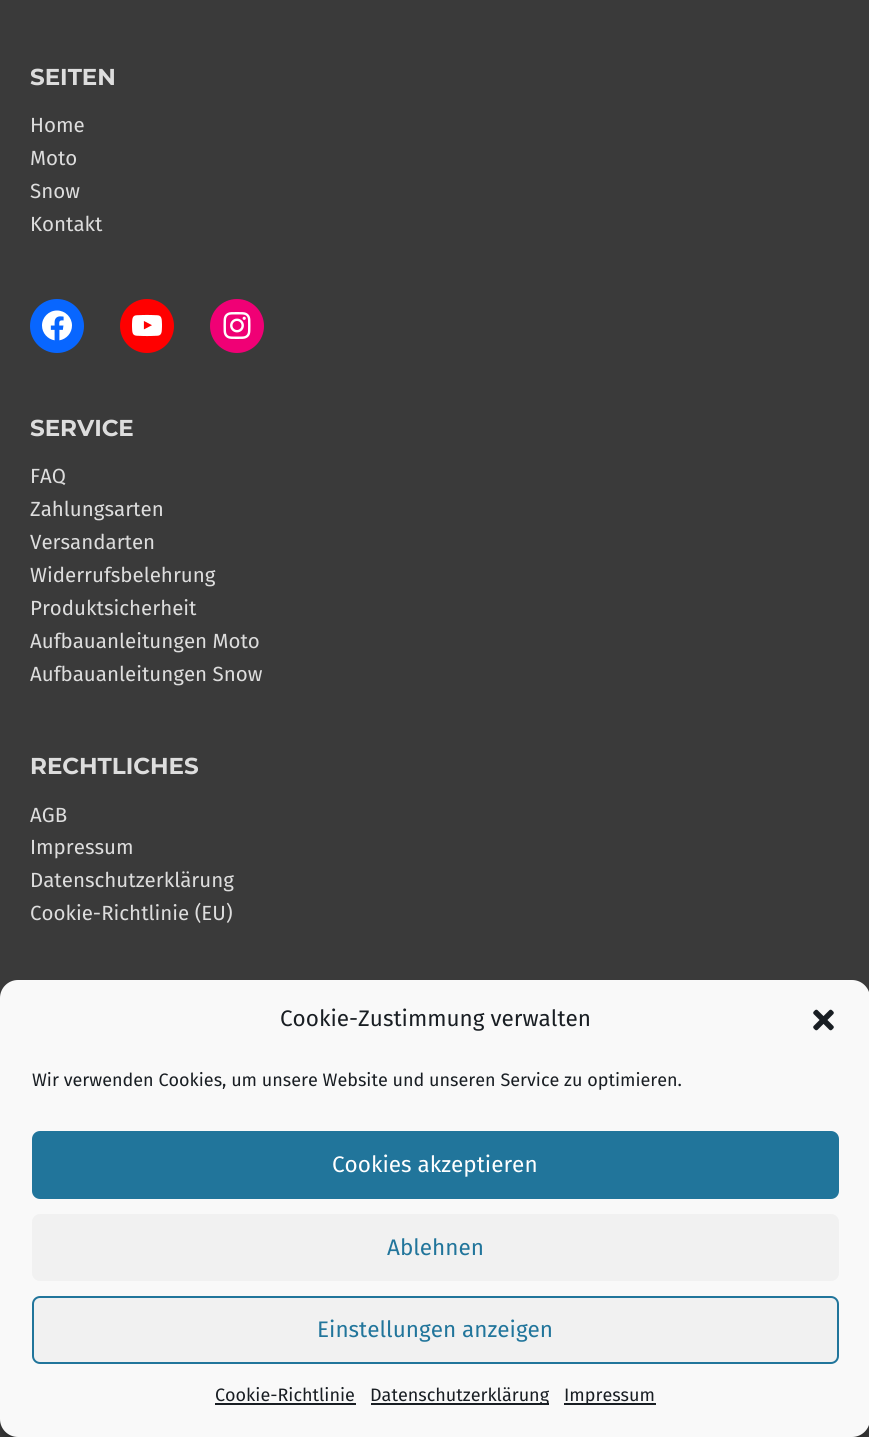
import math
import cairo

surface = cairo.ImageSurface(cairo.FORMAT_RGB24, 869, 1437)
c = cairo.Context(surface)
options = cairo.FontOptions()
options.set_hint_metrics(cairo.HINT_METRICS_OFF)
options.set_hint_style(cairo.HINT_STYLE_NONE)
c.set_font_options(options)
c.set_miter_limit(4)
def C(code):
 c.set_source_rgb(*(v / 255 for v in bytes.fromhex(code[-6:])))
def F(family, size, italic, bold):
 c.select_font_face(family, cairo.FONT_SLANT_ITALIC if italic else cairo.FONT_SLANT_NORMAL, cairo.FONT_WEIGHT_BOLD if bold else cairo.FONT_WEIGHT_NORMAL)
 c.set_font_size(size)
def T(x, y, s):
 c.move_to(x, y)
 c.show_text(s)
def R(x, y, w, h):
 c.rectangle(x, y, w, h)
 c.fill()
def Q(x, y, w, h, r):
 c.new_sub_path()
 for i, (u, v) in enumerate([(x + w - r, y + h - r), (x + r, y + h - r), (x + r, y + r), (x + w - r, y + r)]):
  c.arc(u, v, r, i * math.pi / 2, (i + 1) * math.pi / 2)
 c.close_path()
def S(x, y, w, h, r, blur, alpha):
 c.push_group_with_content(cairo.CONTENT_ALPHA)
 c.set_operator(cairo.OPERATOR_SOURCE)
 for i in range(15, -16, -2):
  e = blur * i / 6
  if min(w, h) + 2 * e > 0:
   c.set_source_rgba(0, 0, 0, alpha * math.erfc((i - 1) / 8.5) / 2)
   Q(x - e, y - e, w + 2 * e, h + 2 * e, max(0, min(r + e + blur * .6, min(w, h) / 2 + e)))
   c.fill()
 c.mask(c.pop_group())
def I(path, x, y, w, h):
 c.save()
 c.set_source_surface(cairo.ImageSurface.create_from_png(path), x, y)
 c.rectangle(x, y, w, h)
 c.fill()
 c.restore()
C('3a3a3a')
c.paint()
F('Montserrat Thin',23,0,0)
C('dddddd')
T(30,85,'SEITEN')
F('Fira Sans',20.5,0,0)
T(30,132,'Home')
T(30,165,'Moto')
T(30,198,'Snow')
T(30,231,'Kontakt')
C('0866ff')
c.new_path()
c.arc(57,326,27,0,2 * math.pi)
c.fill()
I('1.png',42,310,30,31)
C('ff0000')
c.arc(147,326,27,0,2 * math.pi)
c.fill()
I('2.png',132,314,30,23)
C('f00075')
c.arc(237,326,27,0,2 * math.pi)
c.fill()
I('3.png',223,312,28,27)
F('Montserrat Thin',23,0,0)
C('dddddd')
T(30,436,'SERVICE')
F('Fira Sans',20.5,0,0)
T(30,483,'FAQ')
T(30,516,'Zahlungsarten')
T(30,549,'Versandarten')
T(30,582,'Widerrufsbelehrung')
T(30,615,'Produktsicherheit')
T(30,648,'Aufbauanleitungen Moto')
T(30,681,'Aufbauanleitungen Snow')
F('Montserrat Thin',23,0,0)
T(30,774,'RECHTLICHES')
F('Fira Sans',20.5,0,0)
T(30,822,'AGB')
T(30,854,'Impressum')
T(30,887,'Datenschutzerklärung')
T(30,920,'Cookie-Richtlinie (EU)')
C('000000')
S(0,989,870,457,18,4.5,.23)
C('f9f9f9')
Q(1,981,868,455,17)
c.fill_preserve()
c.stroke()
F('Fira Sans',22.5,0,0)
C('191e23')
T(280,1026,'Cookie-Zustimmung verwalten')
I('4.png',813,1009,21,22)
F('Fira Sans',18,0,0)
T(32,1086,'Wir verwenden Cookies, um unsere Website und unseren Service zu optimieren.')
C('21759b')
Q(33,1132,805,66,7)
c.fill_preserve()
c.stroke()
F('Fira Sans',22.5,0,0)
C('ffffff')
T(332,1172,'Cookies akzeptieren')
C('f1f1f1')
Q(32,1214,807,67,8)
c.fill()
C('21759b')
T(387,1255,'Ablehnen')
C('f1f1f1')
Q(33,1297,805,66,7)
c.fill_preserve()
C('21759b')
c.stroke()
T(317,1337,'Einstellungen anzeigen')
F('Fira Sans',18,0,0)
C('191e23')
T(215,1401,'Cookie-Richtlinie')
R(215,1403,141,2)
R(371,1403,178,2)
T(370,1401,'Datenschutzerklärung')
R(564,1403,92,2)
T(564,1401,'Impressum')
surface.write_to_png('o.png')
